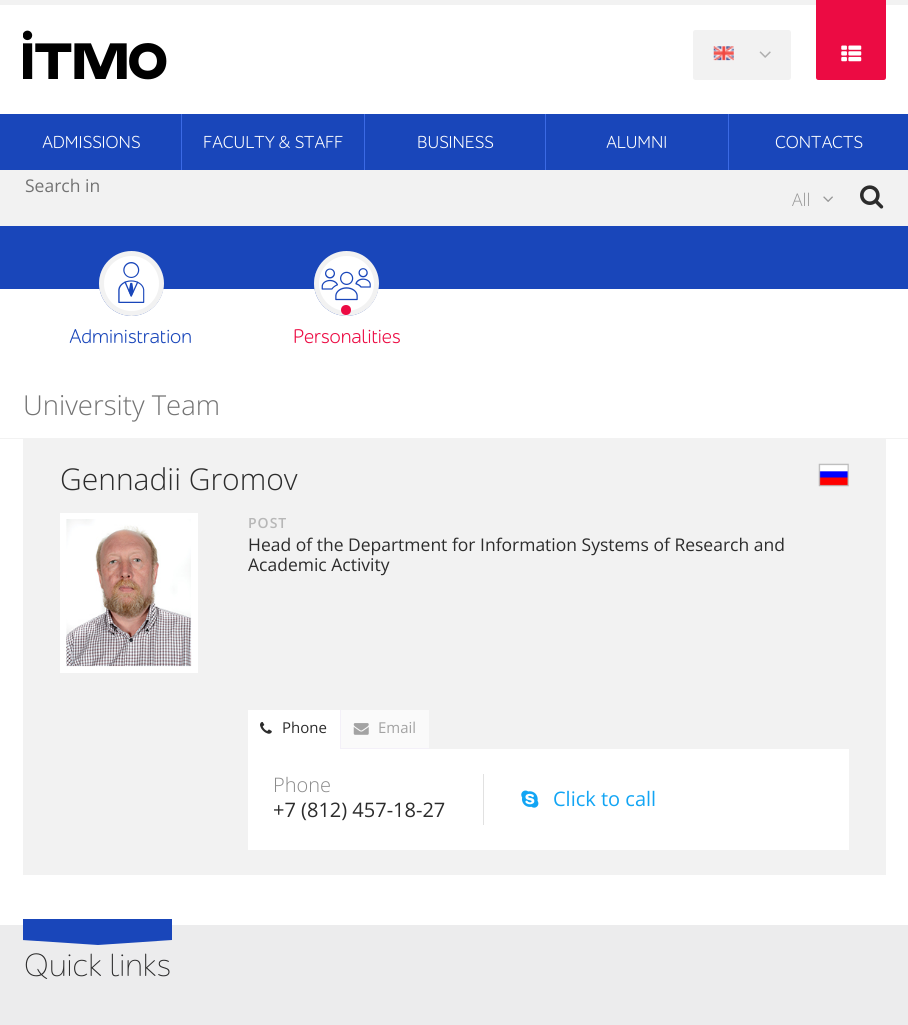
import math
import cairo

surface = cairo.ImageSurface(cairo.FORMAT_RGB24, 908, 1025)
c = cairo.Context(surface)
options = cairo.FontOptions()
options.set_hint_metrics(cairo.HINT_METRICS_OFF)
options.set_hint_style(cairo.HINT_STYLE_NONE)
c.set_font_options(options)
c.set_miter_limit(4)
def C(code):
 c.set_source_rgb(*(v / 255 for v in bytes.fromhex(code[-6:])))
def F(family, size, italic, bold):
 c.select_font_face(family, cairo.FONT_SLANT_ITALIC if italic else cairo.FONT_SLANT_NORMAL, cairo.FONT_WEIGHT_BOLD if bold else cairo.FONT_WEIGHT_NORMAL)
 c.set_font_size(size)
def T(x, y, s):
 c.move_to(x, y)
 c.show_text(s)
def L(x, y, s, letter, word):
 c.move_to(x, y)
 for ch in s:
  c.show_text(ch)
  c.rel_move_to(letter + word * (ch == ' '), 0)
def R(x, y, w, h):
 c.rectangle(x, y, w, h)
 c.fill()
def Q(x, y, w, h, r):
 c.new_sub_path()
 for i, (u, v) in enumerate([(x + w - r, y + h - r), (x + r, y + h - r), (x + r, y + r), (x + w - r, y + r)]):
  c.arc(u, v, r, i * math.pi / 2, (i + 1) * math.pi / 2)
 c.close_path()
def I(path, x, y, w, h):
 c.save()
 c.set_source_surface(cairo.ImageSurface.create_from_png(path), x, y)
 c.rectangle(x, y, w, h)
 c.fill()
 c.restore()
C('ffffff')
c.paint()
C('f2f2f2')
R(0,0,908,5)
I('1.png',23,30,144,50)
Q(693,30,98,50,2.5)
c.fill()
I('2.png',713,46,21,15)
I('3.png',759,51,12,7)
C('ec0b43')
c.new_path()
c.move_to(816,0)
c.line_to(886,0)
c.line_to(886,77.5)
c.curve_to(886,79,885,80,883.5,80)
c.line_to(818.5,80)
c.curve_to(817,80,816,79,816,77.5)
c.close_path()
c.fill()
I('4.png',841,45,21,17)
C('1946ba')
R(0,114,181,56)
F('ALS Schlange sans',17.5,0,0)
C('ffffff')
T(42,148,'ADMISSIONS')
C('1946ba')
R(182,114,182,56)
C('3b6ae5')
R(181,114,1,56)
C('ffffff')
T(203,148,'FACULTY & STAFF')
C('1946ba')
R(365,114,180,56)
C('3b6ae5')
R(364,114,1,56)
C('ffffff')
T(417,148,'BUSINESS')
C('1946ba')
R(546,114,182,56)
C('3b6ae5')
R(545,114,1,56)
C('ffffff')
T(606,148,'ALUMNI')
C('1946ba')
R(729,114,179,56)
C('3b6ae5')
R(728,114,1,56)
C('ffffff')
T(775,148,'CONTACTS')
C('f2f2f2')
R(0,170,908,56)
F('Open Sans',17.5,0,0)
C('737373')
T(25,192,'Search in')
F('Open Sans Light',17.5,0,0)
C('979797')
T(792,206,'All')
I('5.png',823,196,10,6)
I('6.png',860,185,24,24)
C('1946ba')
R(0,226,908,63)
I('7.png',99,251,65,65)
c.arc(131.5,283.5,30,0,2 * math.pi)
C('f2f2f2')
c.set_line_width(5)
c.stroke()
F('ALS Schlange sans',20,0,0)
C('1946ba')
T(69,343,'Administration')
I('8.png',314,251,65,65)
c.arc(346.5,283.5,30,0,2 * math.pi)
C('f2f2f2')
c.stroke()
C('ec0b43')
c.arc(346,310,5,0,2 * math.pi)
c.fill()
T(293,343,'Personalities')
F('Open Sans Light',27.5,0,0)
C('737373')
T(23,415,'University Team')
C('f2f2f2')
R(0,438,908,1)
R(23,439,863,436)
F('Open Sans Light',30,0,0)
C('2c2c2c')
T(60,490,'Gennadii Gromov')
I('9.png',818,463,31,24)
C('ffffff')
R(60,513,138,160)
I('10.png',66,519,126,148)
F('Open Sans SemiBold',14,0,0)
C('b7b7b7')
L(248,528,'POST',1,0)
F('Open Sans',17.5,0,0)
C('2c2c2c')
T(248,551,'Head of the Department for Information Systems of Research and')
T(248,571,'Academic Activity')
C('ffffff')
R(248,710,92,39)
I('11.png',260,722,12,12)
F('Open Sans',15,0,0)
C('2c2c2c')
T(282,733,'Phone')
C('f3f0f8')
R(340,710,1,39)
C('fafafa')
R(341,710,88,38)
C('f3f0f8')
R(341,748,88,1)
I('12.png',353,723,16,12)
C('a3a3a3')
T(378,733,'Email')
C('ffffff')
R(248,749,601,101)
F('Open Sans Light',20,0,0)
C('8a8a8a')
T(273,792,'Phone')
F('Open Sans',20,0,0)
C('2c2c2c')
T(273,817,'+7 (812) 457-18-27')
C('e1e1e1')
R(483,774,1,51)
I('13.png',521,790,18,18)
C('12a5f4')
T(553,806,'Click to call')
C('ececed')
R(0,925,908,100)
c.save()
c.rectangle(23,919,150,26)
c.clip()
C('1946ba')
c.new_path()
c.move_to(22,919)
c.line_to(172,919)
c.line_to(172,940)
c.line_to(98,945)
c.line_to(22,940)
c.close_path()
c.fill()
c.restore()
F('ALS Schlange sans Light',32.5,0,0)
C('2c2c2c')
T(24,976,'Quick links')
surface.write_to_png('o.png')
